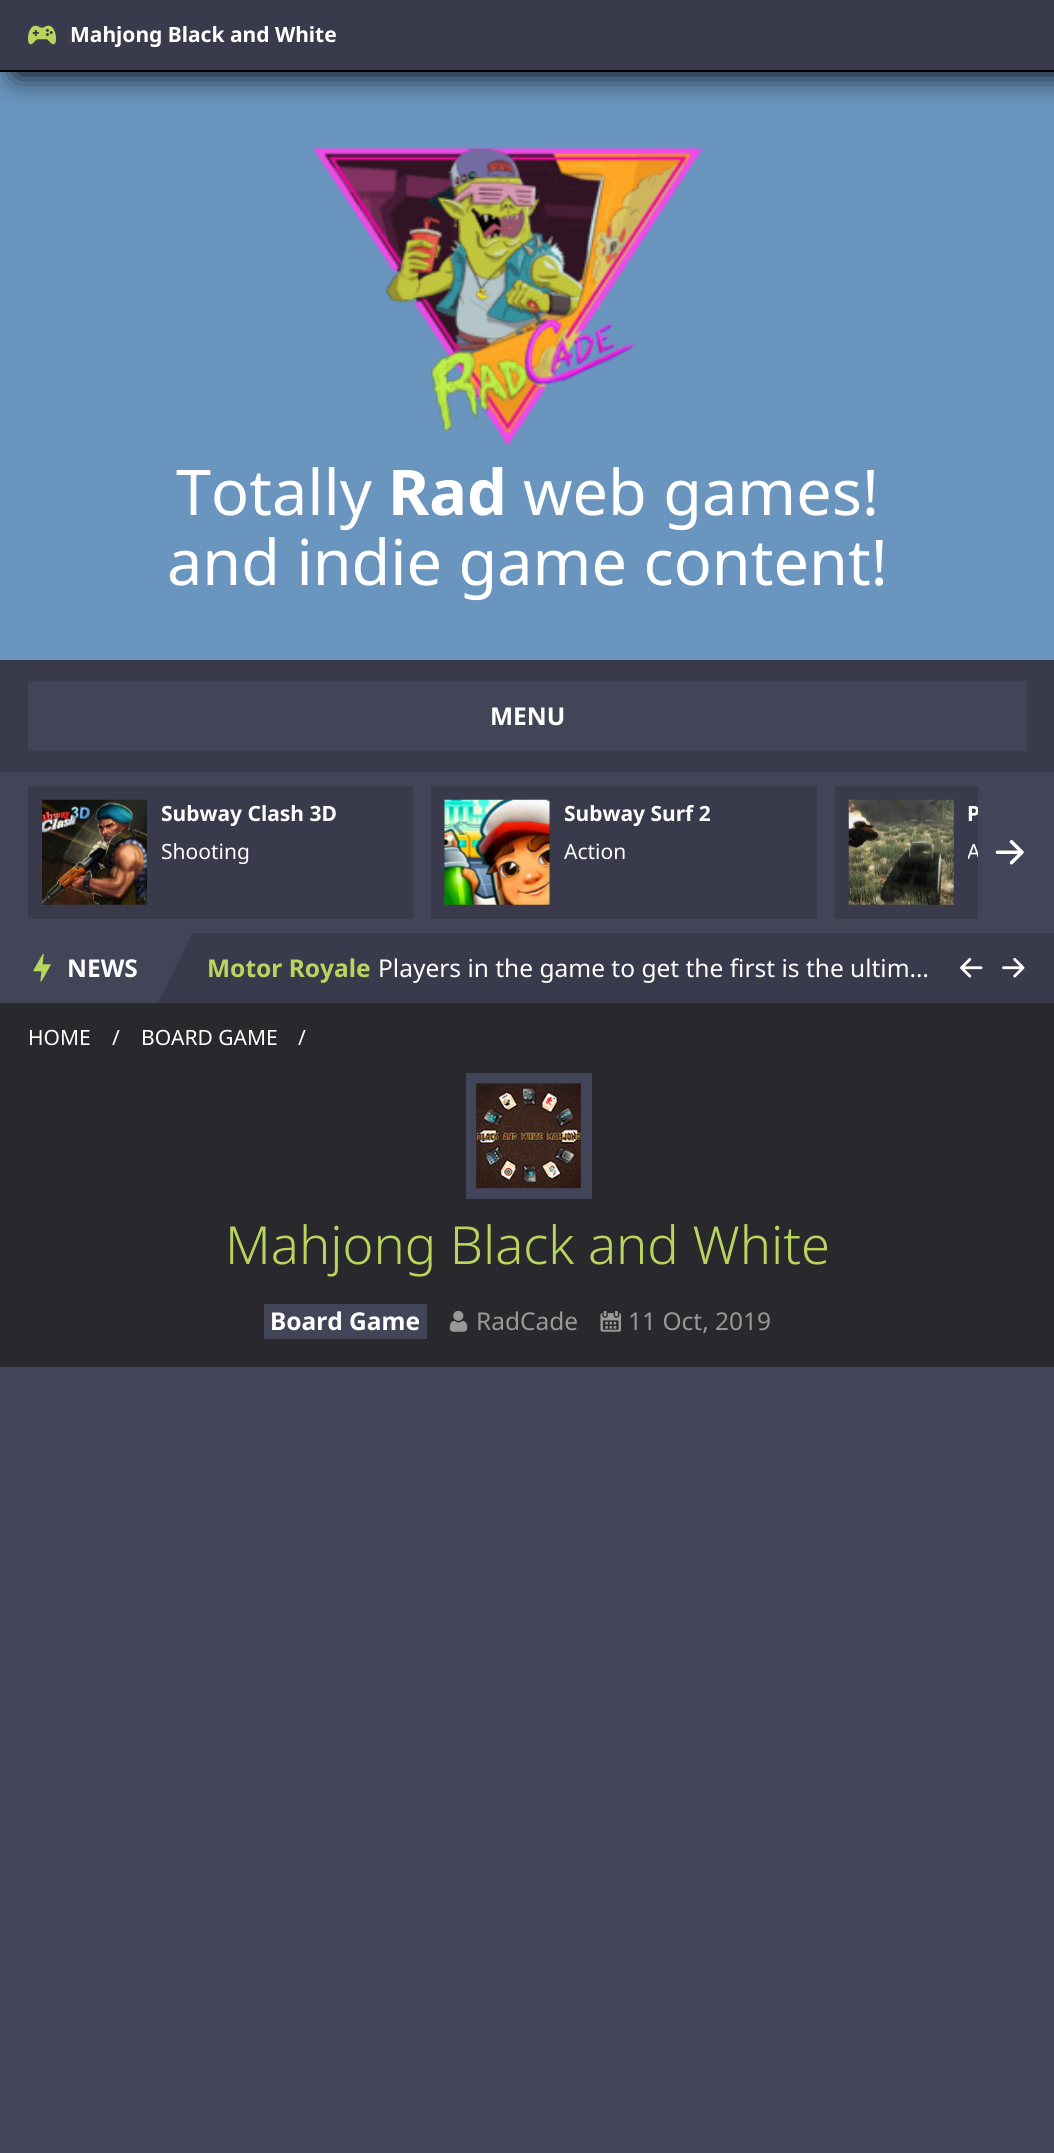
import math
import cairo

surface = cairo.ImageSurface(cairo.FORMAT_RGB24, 1054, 2153)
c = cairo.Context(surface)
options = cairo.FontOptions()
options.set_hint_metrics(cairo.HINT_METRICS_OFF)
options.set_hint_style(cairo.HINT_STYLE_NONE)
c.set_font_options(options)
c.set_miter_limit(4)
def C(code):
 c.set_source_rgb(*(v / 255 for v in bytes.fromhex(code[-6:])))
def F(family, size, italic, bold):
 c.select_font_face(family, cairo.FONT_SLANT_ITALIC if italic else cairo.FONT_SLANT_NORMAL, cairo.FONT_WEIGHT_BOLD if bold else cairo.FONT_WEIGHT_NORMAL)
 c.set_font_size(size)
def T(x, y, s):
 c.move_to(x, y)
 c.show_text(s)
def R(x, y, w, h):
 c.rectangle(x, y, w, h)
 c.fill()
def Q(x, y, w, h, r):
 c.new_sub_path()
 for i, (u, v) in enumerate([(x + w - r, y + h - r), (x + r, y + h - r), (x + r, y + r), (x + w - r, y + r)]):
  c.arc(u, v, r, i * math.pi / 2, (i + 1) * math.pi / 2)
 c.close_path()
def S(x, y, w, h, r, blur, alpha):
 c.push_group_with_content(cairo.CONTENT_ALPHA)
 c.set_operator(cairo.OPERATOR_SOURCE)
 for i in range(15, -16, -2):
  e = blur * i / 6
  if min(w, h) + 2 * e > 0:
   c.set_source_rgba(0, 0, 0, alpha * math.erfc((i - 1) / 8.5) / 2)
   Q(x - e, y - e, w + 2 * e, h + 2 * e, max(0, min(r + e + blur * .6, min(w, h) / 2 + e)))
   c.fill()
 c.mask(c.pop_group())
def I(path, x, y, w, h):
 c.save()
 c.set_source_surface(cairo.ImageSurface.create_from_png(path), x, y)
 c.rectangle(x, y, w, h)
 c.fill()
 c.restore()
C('29292d')
c.paint()
C('6995bf')
R(0,72,1054,588)
C('000000')
S(16,2,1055,72,0,15,1)
C('393a4c')
R(0,0,1054,70)
C('000000')
R(0,70,1054,2)
I('1.png',28,25,28,20)
F('Noto Sans',21,0,1)
C('ffffff')
T(70,42,'Mahjong Black and White')
I('2.png',313,146,391,300)
F('Noto Sans',63,0,0)
T(176,515,'Totally')
F('Noto Sans',63,0,1)
T(388,515,'Rad')
F('Noto Sans',63,0,0)
T(523,515,'web games!')
T(167,585,'and indie game content!')
C('393a4c')
R(0,660,1054,112)
C('424558')
R(28,681,999,70)
F('Noto Sans',24.5,0,1)
C('ffffff')
T(490,725,'MENU')
C('424558')
R(0,772,1054,161)
C('393a4c')
R(28,786,385,133)
I('3.png',42,799,105,106)
F('Noto Sans',21,0,1)
C('ffffff')
T(161,821,'Subway Clash 3D')
F('Noto Sans',21,0,0)
T(161,859,'Shooting')
C('393a4c')
R(431,786,386,133)
I('4.png',444,799,106,106)
F('Noto Sans',21,0,1)
C('ffffff')
T(564,821,'Subway Surf 2')
F('Noto Sans',21,0,0)
T(564,859,'Action')
C('393a4c')
R(835,786,143,133)
I('5.png',848,799,106,106)
c.save()
c.rectangle(968,800,10,28)
c.clip()
F('Noto Sans',21,0,1)
C('ffffff')
T(967,821,'P')
c.restore()
c.save()
c.rectangle(968,838,10,28)
c.clip()
C('ffffff')
T(967,859,'A')
c.restore()
I('6.png',995,840,29,25)
R(158,933,896,70)
C('424558')
R(0,933,158,70)
I('7.png',33,954,18,28)
F('Noto Sans',24.5,0,1)
C('ffffff')
T(67,977,'NEWS')
C('424558')
c.new_path()
c.move_to(158,933)
c.line_to(192,933)
c.line_to(158,1003)
c.close_path()
c.fill()
C('b9d55e')
T(207,977,'Motor Royale')
F('Noto Sans',24.5,0,0)
C('ffffff')
T(378,977,'Players in the game to get the first is the ultim…')
I('8.png',960,958,23,20)
I('9.png',1002,958,23,20)
F('Noto Sans',21,0,0)
T(28,1045,'HOME')
T(112,1045,'/')
T(141,1045,'BOARD GAME')
T(298,1045,'/')
C('424558')
R(466,1073,126,126)
I('10.png',476,1083,105,106)
F('Noto Sans Light',52.5,0,0)
C('b9d55e')
T(225,1264,'Mahjong Black and White')
C('424558')
R(264,1304,163,35)
F('Noto Sans',24.5,0,1)
C('ffffff')
T(270,1330,'Board Game')
I('11.png',449,1311,19,21)
F('Noto Sans',24.5,0,0)
C('999999')
T(476,1330,'RadCade')
I('12.png',600,1311,21,21)
T(628,1330,'11 Oct, 2019')
C('424558')
R(0,1367,1054,786)
surface.write_to_png('o.png')
